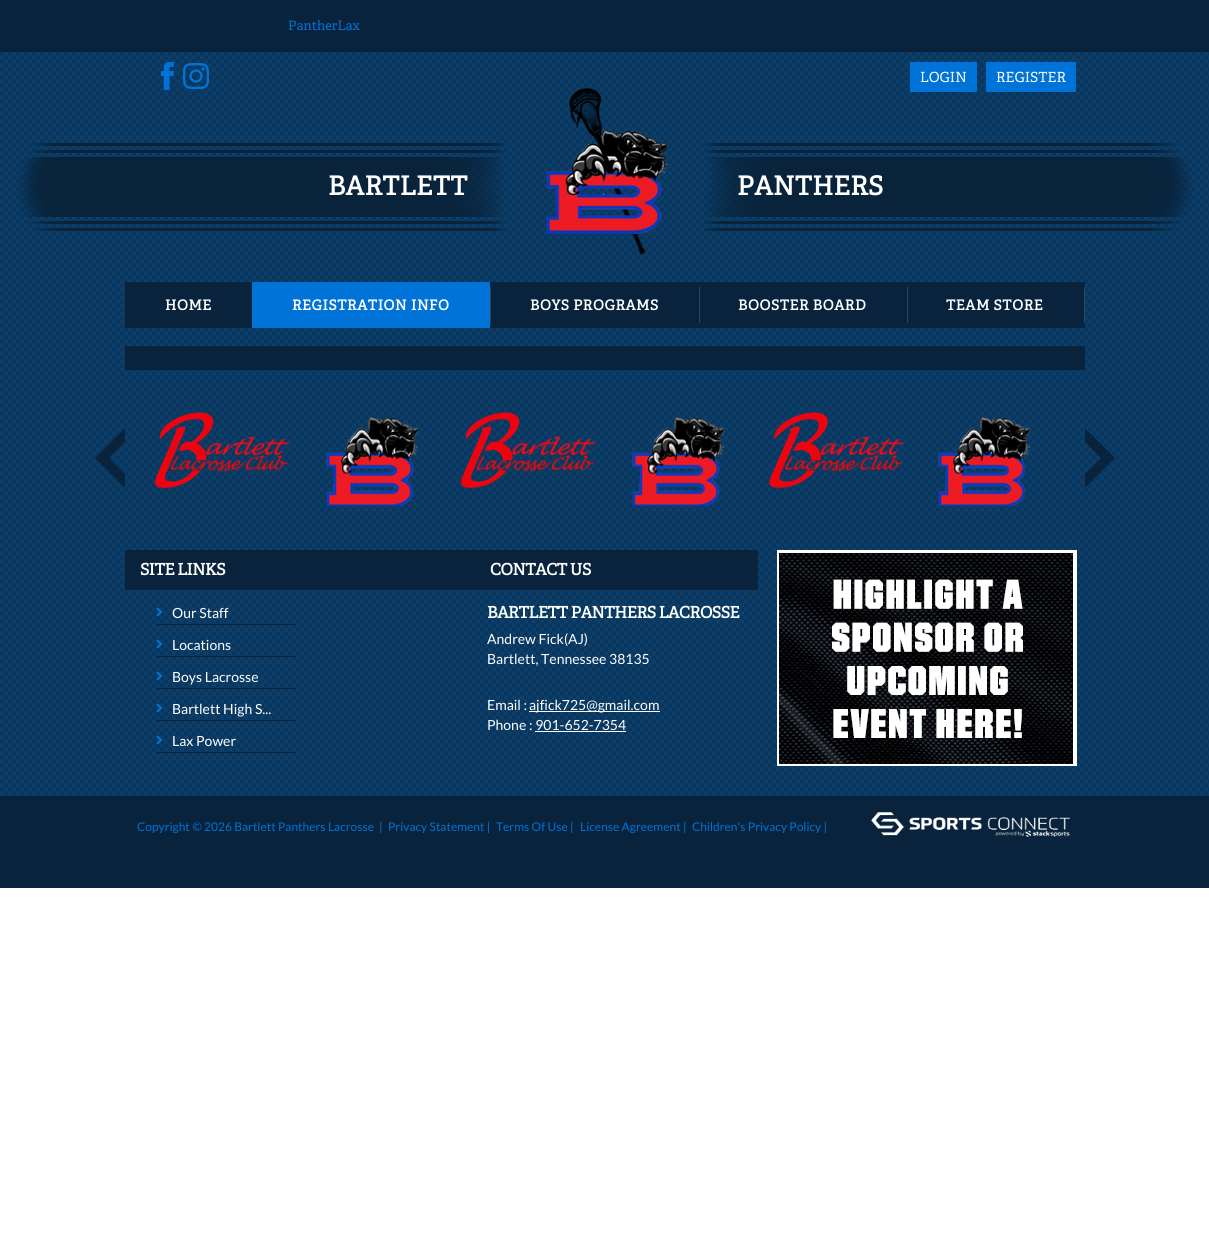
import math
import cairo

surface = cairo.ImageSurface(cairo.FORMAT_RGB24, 1209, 1238)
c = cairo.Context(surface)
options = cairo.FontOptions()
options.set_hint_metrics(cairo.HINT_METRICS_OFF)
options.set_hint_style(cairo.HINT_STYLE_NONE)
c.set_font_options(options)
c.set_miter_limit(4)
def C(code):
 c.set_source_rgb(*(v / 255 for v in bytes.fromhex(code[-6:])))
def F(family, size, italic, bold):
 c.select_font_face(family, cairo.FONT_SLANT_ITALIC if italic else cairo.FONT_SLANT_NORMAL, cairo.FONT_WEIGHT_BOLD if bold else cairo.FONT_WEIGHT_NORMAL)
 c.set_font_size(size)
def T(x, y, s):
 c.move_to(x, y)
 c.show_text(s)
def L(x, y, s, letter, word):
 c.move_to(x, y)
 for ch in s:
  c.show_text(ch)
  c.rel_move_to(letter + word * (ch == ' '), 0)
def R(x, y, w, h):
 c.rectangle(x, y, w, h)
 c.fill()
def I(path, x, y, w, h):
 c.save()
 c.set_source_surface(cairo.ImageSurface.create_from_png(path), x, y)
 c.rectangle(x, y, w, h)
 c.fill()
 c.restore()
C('ffffff')
c.paint()
I('1.png',0,52,1209,744)
C('08233b')
R(0,0,1209,52)
F('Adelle',13,0,0)
C('0073d8')
T(288,30,'PantherLax')
I('2.png',161,62,13,28)
I('3.png',183,63,26,26)
R(910,62,67,30)
F('Adelle',14,0,0)
C('ffffff')
T(920,82,'LOGIN')
C('0073d8')
R(986,62,90,30)
C('ffffff')
T(996,82,'REGISTER')
I('4.png',16,143,1178,88)
I('5.png',546,88,122,167)
F('Adelle',26,0,1)
L(328,195,'BARTLETT',.25,0)
L(737,195,'PANTHERS',.25,0)
C('08233b')
R(125,282,960,46)
F('Adelle',14,0,1)
C('ffffff')
L(165,310,'HOME',.6,0)
C('0073d8')
R(252,282,238,46)
C('ffffff')
L(292,310,'REGISTRATION INFO',.6,0)
C('2d4459')
R(490,287,1,36)
C('ffffff')
L(530,310,'BOYS PROGRAMS',.6,0)
C('2d4459')
R(699,287,1,36)
C('ffffff')
L(738,310,'BOOSTER BOARD',.6,0)
C('2d4459')
R(907,287,1,36)
C('ffffff')
L(946,310,'TEAM STORE',.6,0)
C('2d4459')
R(1084,287,1,36)
C('08233b')
R(125,346,960,24)
I('6.png',95,428,30,60)
I('7.png',154,412,136,77)
I('8.png',326,416,92,90)
I('9.png',460,412,136,77)
I('10.png',632,416,92,90)
I('11.png',769,412,136,77)
I('12.png',938,416,92,90)
I('13.png',1085,428,30,60)
R(125,550,633,40)
F('Adelle',16,0,1)
C('ffffff')
L(140,575,'SITE LINKS',-.5,0)
C('08233b')
R(156,624,140,1)
I('14.png',156,607,7,10)
F('Lato',14,0,0)
C('ffffff')
T(172,618,'Our Staff')
C('08233b')
R(156,656,140,1)
I('14.png',156,639,7,10)
C('ffffff')
T(172,650,'Locations')
C('08233b')
R(156,688,140,1)
I('14.png',156,671,7,10)
C('ffffff')
T(172,682,'Boys Lacrosse')
C('08233b')
R(156,720,140,1)
I('14.png',156,703,7,10)
C('ffffff')
T(172,714,'Bartlett High S...')
C('08233b')
R(156,752,140,1)
I('14.png',156,735,7,10)
C('ffffff')
T(172,746,'Lax Power')
F('Adelle',16,0,1)
L(490,575,'CONTACT US',-.5,0)
L(487,618,'BARTLETT PANTHERS LACROSSE',-.5,0)
F('Lato',14,0,0)
T(487,644,'Andrew Fick(AJ)')
T(487,664,'Bartlett, Tennessee 38135')
T(487,710,'Email :')
R(529,711,131,1)
T(529,710,'ajfick725@gmail.com')
T(487,730,'Phone : 901-652-7354')
R(535,731,91,1)
I('15.png',777,550,300,216)
C('08233b')
R(0,796,1209,92)
F('Lato',12,0,0)
C('0073d8')
T(137,831,'Copyright © 2026 Bartlett Panthers Lacrosse')
T(379,831,'|')
T(388,831,'Privacy Statement |')
T(496,831,'Terms Of Use |')
T(580,831,'License Agreement |')
T(692,831,'Children\'s Privacy Policy |')
I('16.png',871,812,200,25)
surface.write_to_png('o.png')
